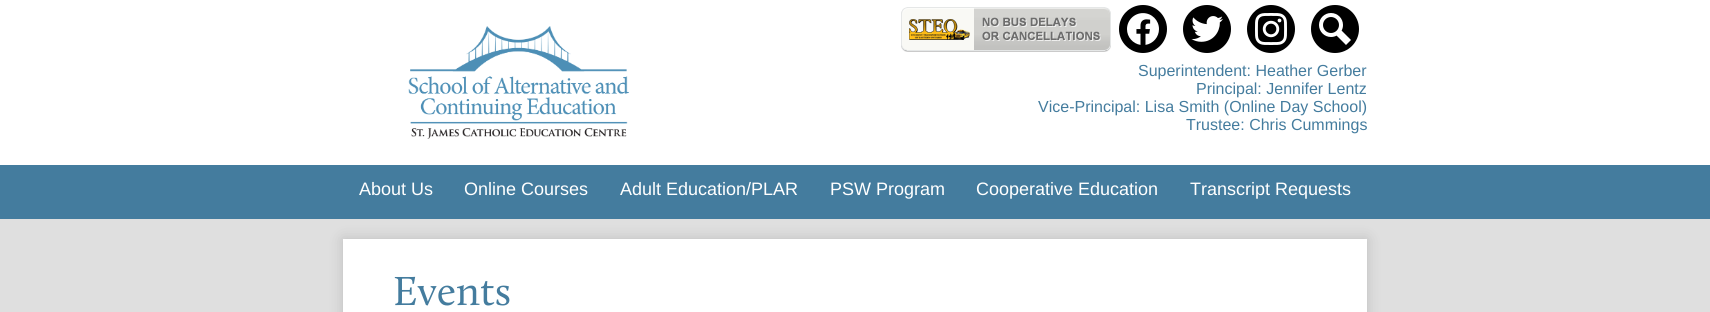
import math
import cairo

surface = cairo.ImageSurface(cairo.FORMAT_RGB24, 1710, 312)
c = cairo.Context(surface)
options = cairo.FontOptions()
options.set_hint_metrics(cairo.HINT_METRICS_OFF)
options.set_hint_style(cairo.HINT_STYLE_NONE)
c.set_font_options(options)
c.set_miter_limit(4)
def C(code):
 c.set_source_rgb(*(v / 255 for v in bytes.fromhex(code[-6:])))
def F(family, size, italic, bold):
 c.select_font_face(family, cairo.FONT_SLANT_ITALIC if italic else cairo.FONT_SLANT_NORMAL, cairo.FONT_WEIGHT_BOLD if bold else cairo.FONT_WEIGHT_NORMAL)
 c.set_font_size(size)
def T(x, y, s):
 c.move_to(x, y)
 c.show_text(s)
def R(x, y, w, h):
 c.rectangle(x, y, w, h)
 c.fill()
def Q(x, y, w, h, r):
 c.new_sub_path()
 for i, (u, v) in enumerate([(x + w - r, y + h - r), (x + r, y + h - r), (x + r, y + r), (x + w - r, y + r)]):
  c.arc(u, v, r, i * math.pi / 2, (i + 1) * math.pi / 2)
 c.close_path()
def S(x, y, w, h, r, blur, alpha):
 c.push_group_with_content(cairo.CONTENT_ALPHA)
 c.set_operator(cairo.OPERATOR_SOURCE)
 for i in range(15, -16, -2):
  e = blur * i / 6
  if min(w, h) + 2 * e > 0:
   c.set_source_rgba(0, 0, 0, alpha * math.erfc((i - 1) / 8.5) / 2)
   Q(x - e, y - e, w + 2 * e, h + 2 * e, max(0, min(r + e + blur * .6, min(w, h) / 2 + e)))
   c.fill()
 c.mask(c.pop_group())
def I(path, x, y, w, h):
 c.save()
 c.set_source_surface(cairo.ImageSurface.create_from_png(path), x, y)
 c.rectangle(x, y, w, h)
 c.fill()
 c.restore()
C('dfdfdf')
c.paint()
C('ffffff')
R(0,0,1710,165)
I('1.png',408,26,221,113)
I('2.png',901,7,210,45)
C('000000')
c.arc(1143,29,24,0,2 * math.pi)
c.fill()
I('3.png',1127,13,32,32)
c.arc(1207,29,24,0,2 * math.pi)
c.fill()
I('4.png',1191,16,32,26)
c.arc(1271,29,24,0,2 * math.pi)
c.fill()
I('5.png',1255,13,32,32)
c.arc(1335,29,24,0,2 * math.pi)
c.fill()
I('6.png',1319,13,32,32)
F('Liberation Sans',16,0,0)
C('447c9e')
T(1138,76,'Superintendent: Heather Gerber')
T(1196,94,'Principal: Jennifer Lentz')
T(1038,112,'Vice-Principal: Lisa Smith (Online Day School)')
T(1186,130,'Trustee: Chris Cummings')
C('000000')
S(343,239,1024,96,0,7.5,.15)
C('447c9e')
R(0,165,1710,54)
F('Liberation Sans',18,0,0)
C('ffffff')
T(359,195,'About Us')
T(464,195,'Online Courses')
T(620,195,'Adult Education/PLAR')
T(830,195,'PSW Program')
T(976,195,'Cooperative Education')
T(1190,195,'Transcript Requests')
R(343,239,1024,73)
F('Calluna',42,0,0)
C('447c9e')
T(393,305,'Events')
surface.write_to_png('o.png')
